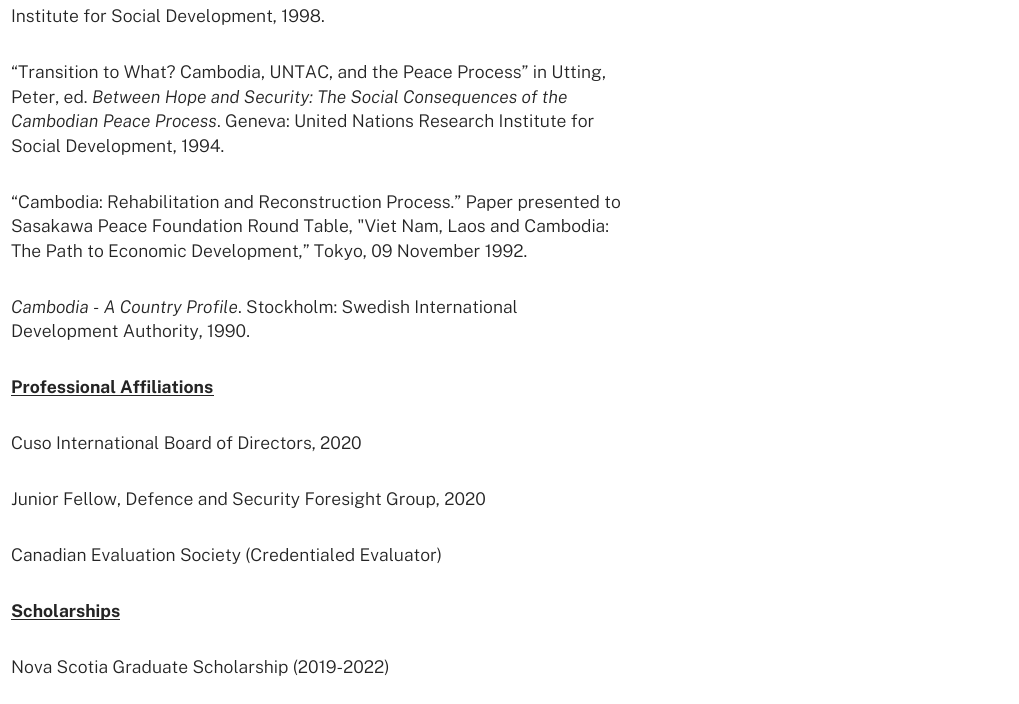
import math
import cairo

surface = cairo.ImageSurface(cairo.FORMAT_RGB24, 1019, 704)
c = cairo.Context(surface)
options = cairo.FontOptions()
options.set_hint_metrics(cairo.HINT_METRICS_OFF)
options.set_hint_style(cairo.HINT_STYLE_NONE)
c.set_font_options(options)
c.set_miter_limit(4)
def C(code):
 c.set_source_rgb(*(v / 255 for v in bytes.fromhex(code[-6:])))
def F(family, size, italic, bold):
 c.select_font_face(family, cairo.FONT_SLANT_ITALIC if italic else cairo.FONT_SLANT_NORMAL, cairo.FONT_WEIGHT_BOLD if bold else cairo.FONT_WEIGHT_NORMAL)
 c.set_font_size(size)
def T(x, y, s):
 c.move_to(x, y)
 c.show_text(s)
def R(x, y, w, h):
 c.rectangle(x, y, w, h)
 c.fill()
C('ffffff')
c.paint()
F('Public Sans Light',17.5,0,0)
C('242424')
T(11,22,'Institute for Social Development, 1998.')
T(11,78,'“Transition to What? Cambodia, UNTAC, and the Peace Process” in Utting,')
T(11,103,'Peter, ed.')
F('Public Sans Light',17.5,1,0)
T(92,103,'Between Hope and Security: The Social Consequences of the')
T(11,127,'Cambodian Peace Process')
F('Public Sans Light',17.5,0,0)
T(217,127,'. Geneva: United Nations Research Institute for')
T(11,152,'Social Development, 1994.')
T(11,208,'“Cambodia: Rehabilitation and Reconstruction Process.” Paper presented to')
T(11,232,'Sasakawa Peace Foundation Round Table, "Viet Nam, Laos and Cambodia:')
T(11,257,'The Path to Economic Development,” Tokyo, 09 November 1992.')
F('Public Sans Light',17.5,1,0)
T(11,313,'Cambodia - A Country Profile')
F('Public Sans Light',17.5,0,0)
T(238,313,'. Stockholm: Swedish International')
T(11,337,'Development Authority, 1990.')
F('Public Sans',17.5,0,1)
T(11,393,'Professional Affiliations')
R(11,395,203,1)
F('Public Sans Light',17.5,0,0)
T(11,449,'Cuso International Board of Directors, 2020')
T(11,505,'Junior Fellow, Defence and Security Foresight Group, 2020')
T(11,561,'Canadian Evaluation Society (Credentialed Evaluator)')
R(11,619,109,1)
F('Public Sans',17.5,0,1)
T(11,617,'Scholarships')
F('Public Sans Light',17.5,0,0)
T(11,673,'Nova Scotia Graduate Scholarship (2019-2022)')
surface.write_to_png('o.png')
